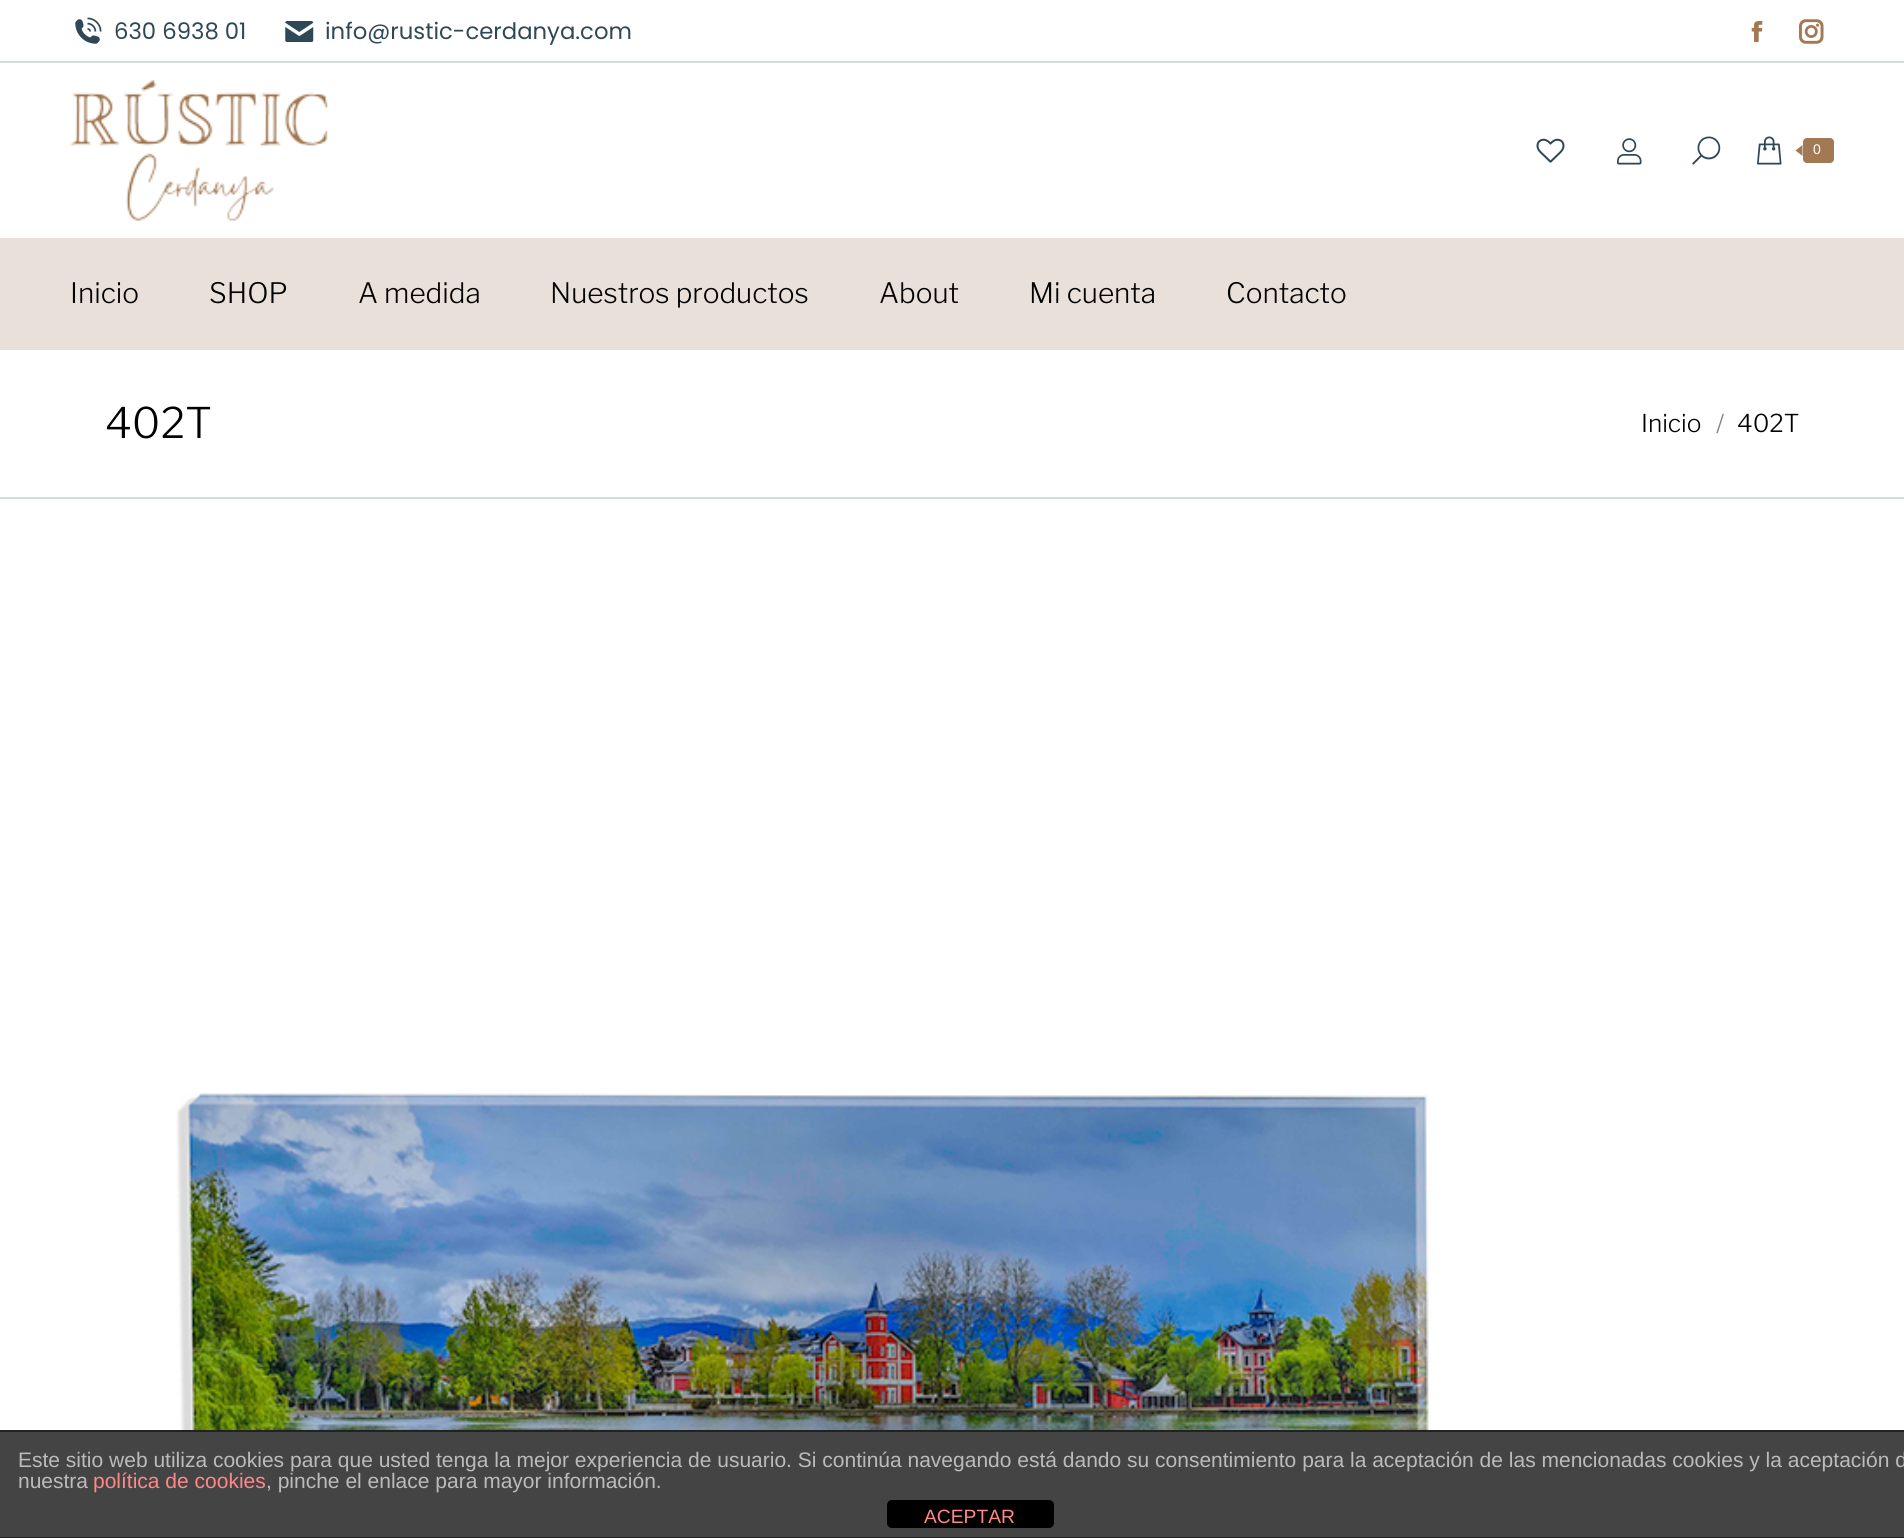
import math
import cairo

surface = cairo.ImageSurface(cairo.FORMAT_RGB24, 1904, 1538)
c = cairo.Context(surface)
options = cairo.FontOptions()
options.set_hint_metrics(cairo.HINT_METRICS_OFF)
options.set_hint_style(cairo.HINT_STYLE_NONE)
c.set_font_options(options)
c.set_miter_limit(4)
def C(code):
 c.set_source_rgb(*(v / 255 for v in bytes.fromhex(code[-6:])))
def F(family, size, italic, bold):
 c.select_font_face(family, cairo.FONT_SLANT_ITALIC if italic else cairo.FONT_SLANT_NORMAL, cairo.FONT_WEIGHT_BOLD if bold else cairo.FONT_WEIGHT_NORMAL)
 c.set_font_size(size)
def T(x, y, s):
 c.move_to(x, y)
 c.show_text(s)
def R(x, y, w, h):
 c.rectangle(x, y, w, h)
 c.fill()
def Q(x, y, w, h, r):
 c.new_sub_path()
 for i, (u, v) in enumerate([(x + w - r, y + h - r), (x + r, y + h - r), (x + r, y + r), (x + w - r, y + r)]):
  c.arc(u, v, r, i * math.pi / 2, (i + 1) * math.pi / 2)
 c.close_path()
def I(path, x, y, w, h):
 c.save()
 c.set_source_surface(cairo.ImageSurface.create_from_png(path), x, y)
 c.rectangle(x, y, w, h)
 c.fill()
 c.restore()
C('ffffff')
c.paint()
I('1.png',75,17,27,27)
F('Poppins',22.75,0,0)
C('2f4858')
T(114,39,'630 6938 01')
I('2.png',285,21,29,21)
T(325,39,'info@rustic-cerdanya.com')
I('3.png',1751,21,12,21)
I('4.png',1799,19,25,25)
C('d5dade')
R(0,61,1904,2)
I('5.png',70,80,258,141)
I('6.png',1536,138,29,25)
I('7.png',1617,138,25,27)
I('8.png',1692,136,29,29)
I('9.png',1757,136,25,29)
C('a27953')
Q(1803,138,31,25,4)
c.fill()
c.new_path()
c.move_to(1802.5,145)
c.line_to(1802.5,156)
c.line_to(1795.5,150.5)
c.close_path()
c.fill()
F('Liberation Sans',14,0,0)
C('ffffff')
T(1813,154,'0')
C('e8e0d9')
R(0,238,1904,112)
F('Libre Franklin Light',28,0,0)
C('000000')
T(70,303,'Inicio')
T(209,303,'SHOP')
T(358,303,'A medida')
T(550,303,'Nuestros productos')
T(879,303,'About')
T(1029,303,'Mi cuenta')
T(1226,303,'Contacto')
C('d5dade')
R(0,497,1904,2)
F('Libre Franklin Light',42,0,0)
C('000000')
T(105,438,'402T')
F('Libre Franklin Light',24.5,0,0)
T(1641,432,'Inicio')
C('808080')
T(1716,432,'/')
C('000000')
T(1737,432,'402T')
I('10.png',176,1093,1254,337)
C('444444')
R(0,1432,1904,105)
C('222222')
R(0,1430,1904,2)
R(0,1537,1904,1)
F('Liberation Sans',21,0,0)
C('bbbbbb')
T(18,1467,'Este sitio web utiliza cookies para que usted tenga la mejor experiencia de usuario. Si continúa navegando está dando su consentimiento para la aceptación de las mencionadas cookies y la aceptación d')
T(18,1488,'nuestra')
C('ff8888')
T(93,1488,'política de cookies')
C('bbbbbb')
T(266,1488,', pinche el enlace para mayor información.')
C('000000')
Q(887,1500,167,28,5)
c.fill()
F('Liberation Sans',19.25,0,0)
C('ff8888')
T(924,1523,'ACEPTAR')
surface.write_to_png('o.png')
